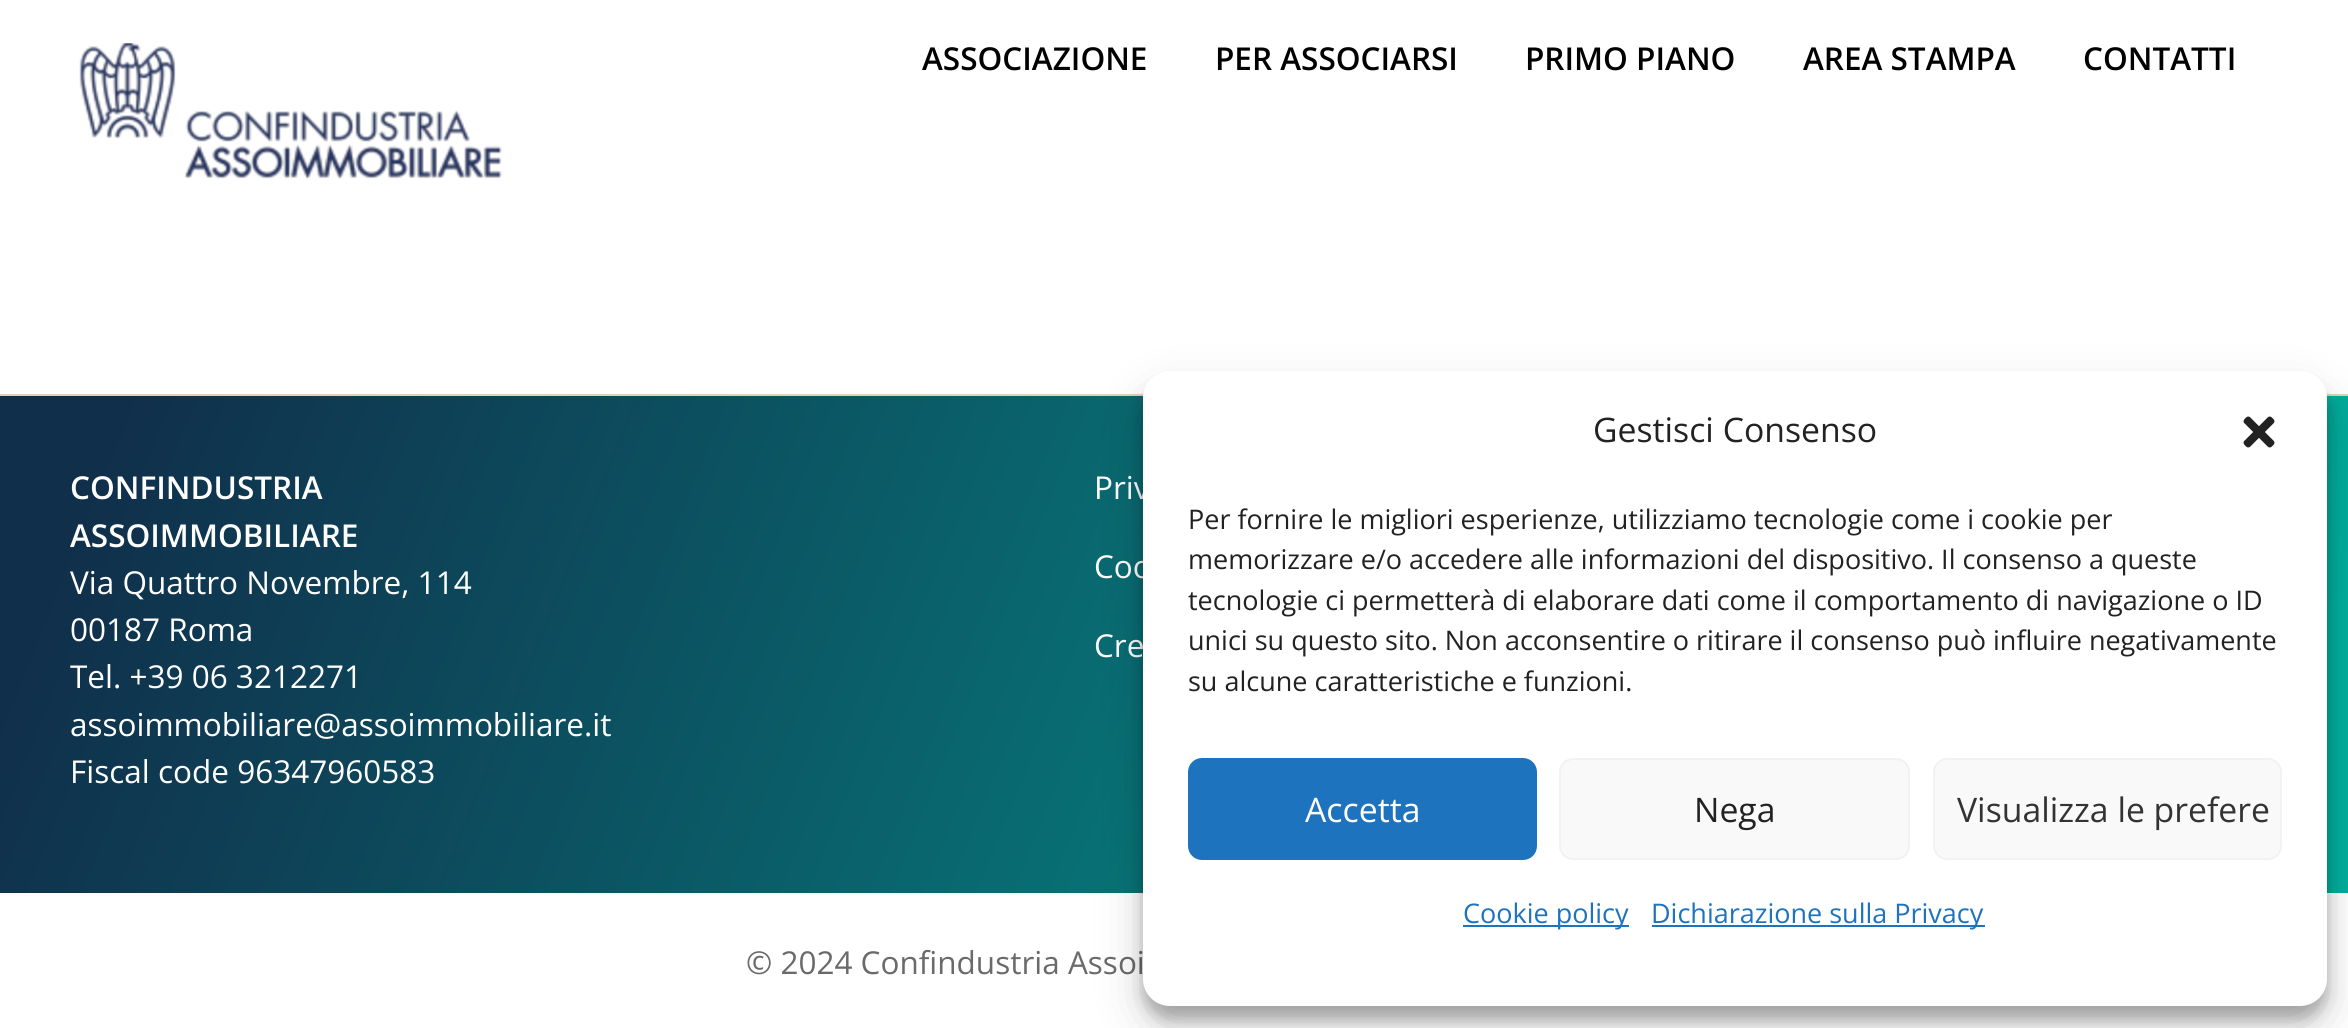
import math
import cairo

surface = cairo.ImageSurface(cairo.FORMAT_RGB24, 2348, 1028)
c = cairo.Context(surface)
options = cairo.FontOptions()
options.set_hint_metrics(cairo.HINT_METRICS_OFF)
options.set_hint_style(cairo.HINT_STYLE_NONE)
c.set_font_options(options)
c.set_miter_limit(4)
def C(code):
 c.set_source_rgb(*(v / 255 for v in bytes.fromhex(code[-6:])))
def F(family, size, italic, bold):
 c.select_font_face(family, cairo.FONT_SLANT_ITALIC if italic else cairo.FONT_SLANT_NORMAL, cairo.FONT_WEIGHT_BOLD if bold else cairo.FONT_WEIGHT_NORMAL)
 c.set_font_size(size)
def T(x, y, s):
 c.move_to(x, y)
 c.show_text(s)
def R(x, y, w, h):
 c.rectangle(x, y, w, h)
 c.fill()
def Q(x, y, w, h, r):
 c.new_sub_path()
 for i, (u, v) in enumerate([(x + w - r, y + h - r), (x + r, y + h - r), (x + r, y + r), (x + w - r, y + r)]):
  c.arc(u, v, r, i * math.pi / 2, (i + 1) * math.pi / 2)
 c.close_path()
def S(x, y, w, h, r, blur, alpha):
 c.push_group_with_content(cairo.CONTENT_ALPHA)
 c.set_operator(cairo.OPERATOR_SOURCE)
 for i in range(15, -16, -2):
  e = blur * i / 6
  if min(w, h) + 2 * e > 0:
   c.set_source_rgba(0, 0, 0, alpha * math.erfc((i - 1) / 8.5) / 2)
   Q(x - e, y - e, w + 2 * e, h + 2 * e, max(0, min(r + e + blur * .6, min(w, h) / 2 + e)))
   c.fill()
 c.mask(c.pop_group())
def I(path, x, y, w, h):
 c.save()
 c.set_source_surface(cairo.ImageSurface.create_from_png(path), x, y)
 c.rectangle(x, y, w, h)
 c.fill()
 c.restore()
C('ffffff')
c.paint()
I('1.png',79,43,423,137)
F('Open Sans SemiBold',31.5,0,0)
C('000000')
T(922,70,'ASSOCIAZIONE')
T(1215,70,'PER ASSOCIARSI')
T(1525,70,'PRIMO PIANO')
T(1803,70,'AREA STAMPA')
T(2083,70,'CONTATTI')
C('e5d1b5')
R(0,394,2348,2)
gradient = cairo.LinearGradient(78,202,2271,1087)
gradient.add_color_stop_rgba(.05,0.063,0.184,0.294,1)
gradient.add_color_stop_rgba(.95,0,0.686,0.616,1)
c.set_source(gradient)
R(0,396,2348,497)
C('ffffff')
T(70,499,'CONFINDUSTRIA')
T(70,547,'ASSOIMMOBILIARE')
F('Open Sans',31.5,0,0)
T(70,594,'Via Quattro Novembre, 114')
T(70,641,'00187 Roma')
T(70,688,'Tel. +39 06 3212271')
T(70,736,'assoimmobiliare@assoimmobiliare.it')
T(70,783,'Fiscal code 96347960583')
T(1094,499,'Priv')
T(1094,578,'Coo')
T(1094,657,'Cre')
C('6a6a6a')
T(746,974,'© 2024 Confindustria Assoi')
C('000000')
S(1143,385,1184,634,27,7,.23)
S(1143,394,1184,634,27,22.5,.19)
C('ffffff')
Q(1143,371,1184,635,27)
c.fill()
F('Open Sans',33.75,0,0)
C('222222')
T(1593,442,'Gestisci Consenso')
I('2.png',2243,416,32,32)
F('Open Sans',27,0,0)
T(1188,529,'Per fornire le migliori esperienze, utilizziamo tecnologie come i cookie per')
T(1188,569,'memorizzare e/o accedere alle informazioni del dispositivo. Il consenso a queste')
T(1188,610,'tecnologie ci permetterà di elaborare dati come il comportamento di navigazione o ID')
T(1188,650,'unici su questo sito. Non acconsentire o ritirare il consenso può influire negativamente')
T(1188,691,'su alcune caratteristiche e funzioni.')
C('1e73be')
Q(1189,759,347,100,13)
c.fill_preserve()
c.stroke()
F('Open Sans',33.75,0,0)
C('ffffff')
T(1305,822,'Accetta')
C('f9f9f9')
Q(1560,759,349,100,13)
c.fill_preserve()
C('f2f2f2')
c.stroke()
C('222222')
T(1694,822,'Nega')
C('f9f9f9')
Q(1934,759,347,100,13)
c.fill_preserve()
C('f2f2f2')
c.stroke()
C('333333')
T(1957,822,'Visualizza le prefere')
C('1e73be')
R(1463,925,166,2)
F('Open Sans',27,0,0)
T(1463,923,'Cookie policy')
R(1652,925,333,2)
T(1651,923,'Dichiarazione sulla Privacy')
surface.write_to_png('o.png')
